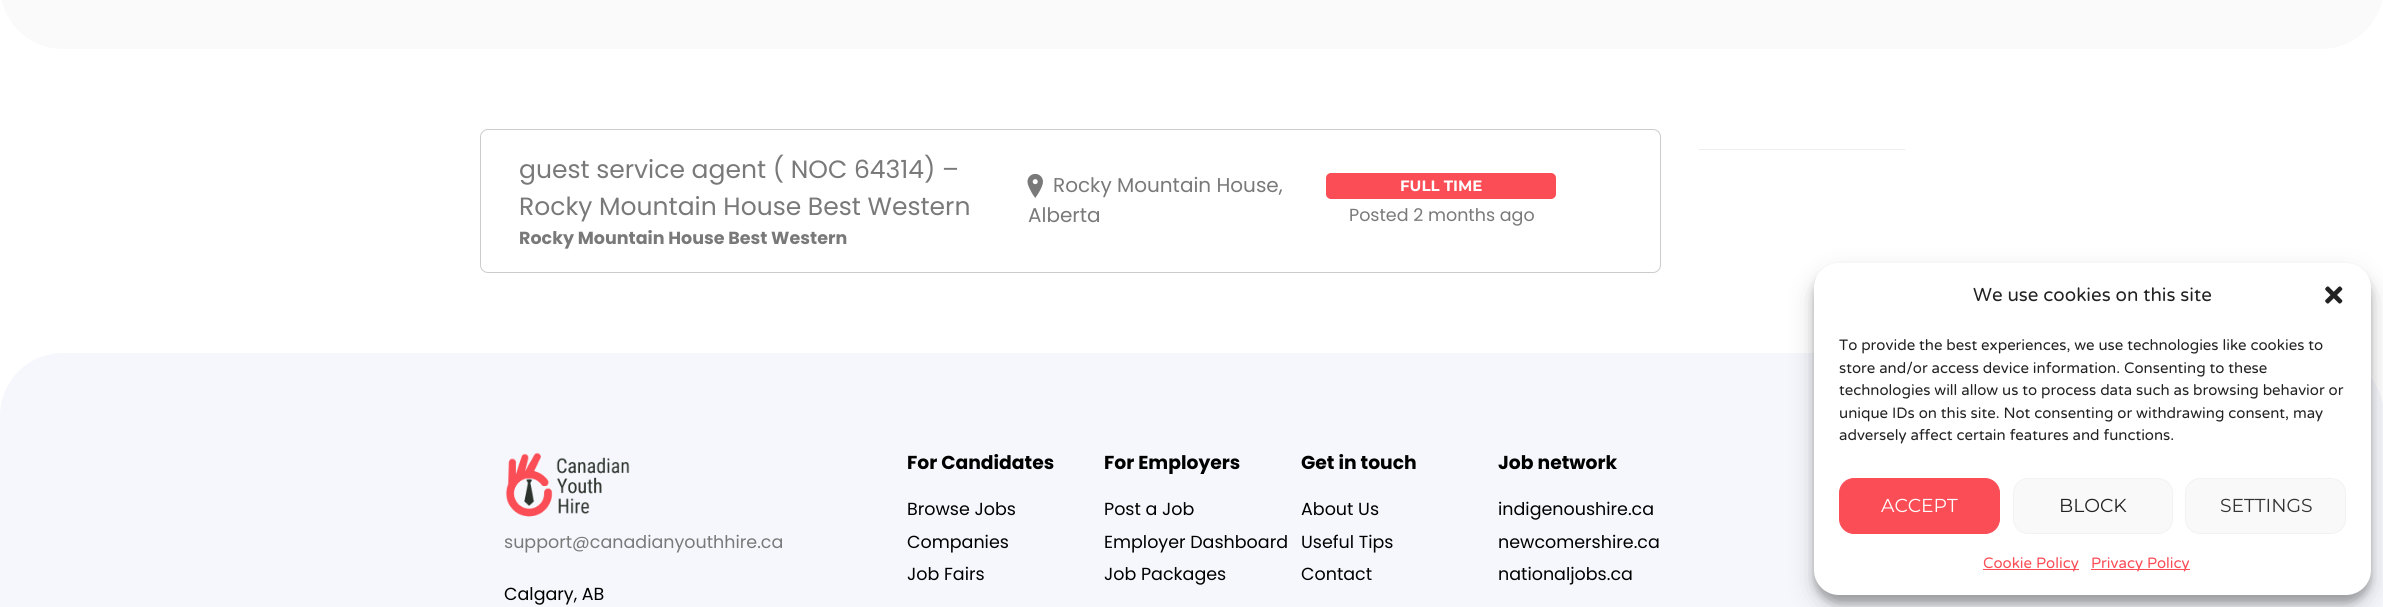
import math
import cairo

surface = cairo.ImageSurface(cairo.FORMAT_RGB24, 2383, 607)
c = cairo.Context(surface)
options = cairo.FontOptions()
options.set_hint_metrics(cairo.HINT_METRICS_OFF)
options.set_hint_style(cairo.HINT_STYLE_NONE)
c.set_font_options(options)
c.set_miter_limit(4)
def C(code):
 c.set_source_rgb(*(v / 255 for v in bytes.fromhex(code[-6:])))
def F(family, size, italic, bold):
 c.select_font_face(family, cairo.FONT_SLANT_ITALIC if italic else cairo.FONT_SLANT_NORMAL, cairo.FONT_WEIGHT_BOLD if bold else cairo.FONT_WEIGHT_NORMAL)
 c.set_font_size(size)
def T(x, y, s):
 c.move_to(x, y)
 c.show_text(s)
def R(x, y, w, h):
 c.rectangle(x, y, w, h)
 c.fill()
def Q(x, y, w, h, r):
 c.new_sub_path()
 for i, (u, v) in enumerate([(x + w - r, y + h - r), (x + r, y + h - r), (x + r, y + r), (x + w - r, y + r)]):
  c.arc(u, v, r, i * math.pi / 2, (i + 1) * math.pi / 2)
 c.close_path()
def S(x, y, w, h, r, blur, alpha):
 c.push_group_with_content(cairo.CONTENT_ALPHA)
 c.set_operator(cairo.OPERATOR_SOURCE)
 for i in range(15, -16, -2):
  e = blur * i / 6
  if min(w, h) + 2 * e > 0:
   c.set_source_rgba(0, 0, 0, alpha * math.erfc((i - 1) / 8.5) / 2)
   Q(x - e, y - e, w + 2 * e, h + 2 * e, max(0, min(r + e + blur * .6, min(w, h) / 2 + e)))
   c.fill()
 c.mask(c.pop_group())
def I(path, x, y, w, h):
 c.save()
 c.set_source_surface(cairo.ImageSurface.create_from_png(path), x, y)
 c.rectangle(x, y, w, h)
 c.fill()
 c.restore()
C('ffffff')
c.paint()
C('fafafa')
c.new_path()
c.move_to(0,-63)
c.line_to(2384,-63)
c.line_to(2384,-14)
c.curve_to(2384,21,2356,49,2321,49)
c.line_to(63,49)
c.curve_to(28,49,0,21,0,-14)
c.close_path()
c.fill()
C('eeeeee')
R(1699,149,206,1)
Q(480.5,129.5,1180,143,7.5)
C('cccccc')
c.set_line_width(1)
c.stroke()
F('Poppins',25,0,0)
C('797979')
T(519,178,'guest service agent ( NOC 64314) –')
T(519,215,'Rocky Mountain House Best Western')
F('Poppins',17.5,0,1)
T(519,244,'Rocky Mountain House Best Western')
I('1.png',1027,173,16,25)
F('Poppins',20,0,0)
T(1053,192,'Rocky Mountain House,')
T(1028,222,'Alberta')
C('fa4d56')
Q(1326,173,230,26,5)
c.fill()
F('Montserrat',15,0,1)
C('ffffff')
T(1400,191,'FULL TIME')
F('Poppins',17.5,0,0)
C('797979')
T(1349,221,'Posted 2 months ago')
C('f6f7fc')
c.new_path()
c.move_to(63,353)
c.line_to(2321,353)
c.curve_to(2356,353,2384,381,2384,416)
c.line_to(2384,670)
c.line_to(0,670)
c.line_to(0,416)
c.curve_to(0,381,28,353,63,353)
c.close_path()
c.fill()
I('2.png',505,452,125,65)
C('797979')
T(504,548,'support@canadianyouthhire.ca')
C('000000')
T(504,600,'Calgary, AB')
F('Poppins',18.75,0,1)
T(907,469,'For Candidates')
F('Poppins',17.5,0,0)
T(907,515,'Browse Jobs')
T(907,548,'Companies')
T(907,580,'Job Fairs')
F('Poppins',18.75,0,1)
T(1104,469,'For Employers')
F('Poppins',17.5,0,0)
T(1104,515,'Post a Job')
T(1104,548,'Employer Dashboard')
T(1104,580,'Job Packages')
F('Poppins',18.75,0,1)
T(1301,469,'Get in touch')
F('Poppins',17.5,0,0)
T(1301,515,'About Us')
T(1301,548,'Useful Tips')
T(1301,580,'Contact')
F('Poppins',18.75,0,1)
T(1498,469,'Job network')
F('Poppins',17.5,0,0)
T(1498,515,'indigenoushire.ca')
T(1498,548,'newcomershire.ca')
T(1498,580,'nationaljobs.ca')
C('000000')
S(1814,270,557,333,25,4,.23)
S(1814,275,557,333,25,12.5,.19)
C('ffffff')
Q(1814,263,557,332,25)
c.fill()
F('Varela Round',18.75,0,0)
C('222222')
T(1973,301,'We use cookies on this site')
I('3.png',2325,286,18,18)
F('Varela Round',15,0,0)
T(1839,350,'To provide the best experiences, we use technologies like cookies to')
T(1839,373,'store and/or access device information. Consenting to these')
T(1839,395,'technologies will allow us to process data such as browsing behavior or')
T(1839,418,'unique IDs on this site. Not consenting or withdrawing consent, may')
T(1839,440,'adversely affect certain features and functions.')
C('fa4d56')
Q(1839.5,478.5,160,55,14.5)
c.fill_preserve()
c.stroke()
F('Montserrat',18.75,0,0)
C('ffffff')
T(1881,512,'ACCEPT')
C('f9f9f9')
Q(2013.5,478.5,159,55,14.5)
c.fill_preserve()
C('f2f2f2')
c.stroke()
C('222222')
T(2059,512,'BLOCK')
C('f9f9f9')
Q(2185.5,478.5,160,55,14.5)
c.fill_preserve()
C('f2f2f2')
c.stroke()
C('333333')
T(2220,512,'SETTINGS')
C('fa4d56')
R(1983,569,96,1)
F('Varela Round',15,0,0)
T(1983,568,'Cookie Policy')
R(2091,569,99,1)
T(2091,568,'Privacy Policy')
surface.write_to_png('o.png')
